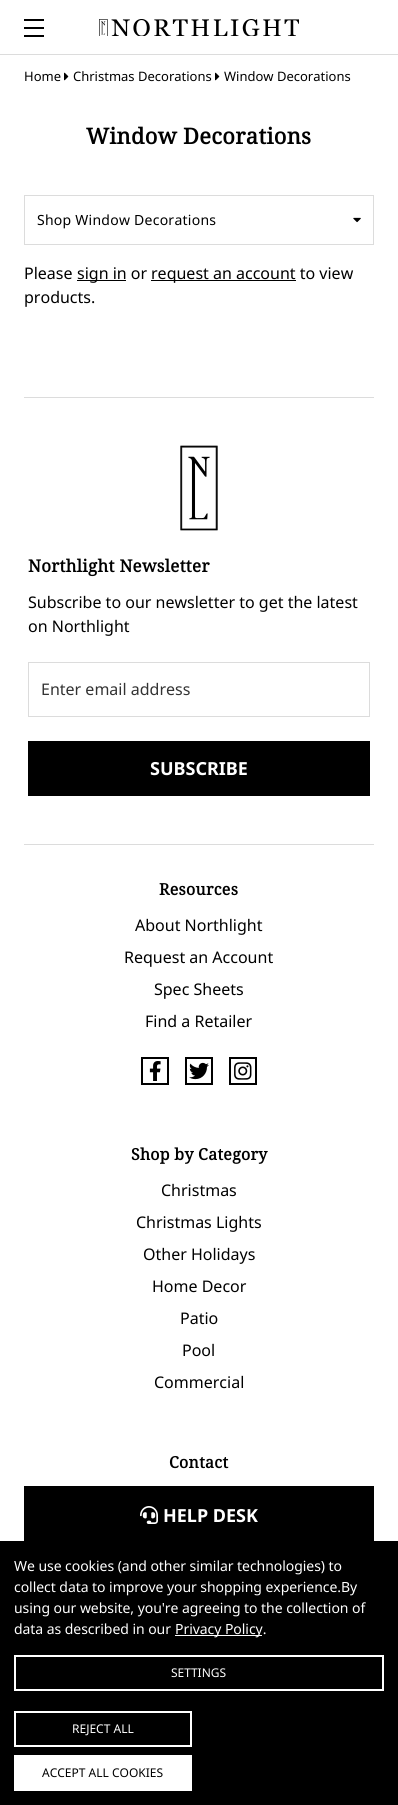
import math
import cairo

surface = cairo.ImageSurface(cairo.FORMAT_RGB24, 398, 1805)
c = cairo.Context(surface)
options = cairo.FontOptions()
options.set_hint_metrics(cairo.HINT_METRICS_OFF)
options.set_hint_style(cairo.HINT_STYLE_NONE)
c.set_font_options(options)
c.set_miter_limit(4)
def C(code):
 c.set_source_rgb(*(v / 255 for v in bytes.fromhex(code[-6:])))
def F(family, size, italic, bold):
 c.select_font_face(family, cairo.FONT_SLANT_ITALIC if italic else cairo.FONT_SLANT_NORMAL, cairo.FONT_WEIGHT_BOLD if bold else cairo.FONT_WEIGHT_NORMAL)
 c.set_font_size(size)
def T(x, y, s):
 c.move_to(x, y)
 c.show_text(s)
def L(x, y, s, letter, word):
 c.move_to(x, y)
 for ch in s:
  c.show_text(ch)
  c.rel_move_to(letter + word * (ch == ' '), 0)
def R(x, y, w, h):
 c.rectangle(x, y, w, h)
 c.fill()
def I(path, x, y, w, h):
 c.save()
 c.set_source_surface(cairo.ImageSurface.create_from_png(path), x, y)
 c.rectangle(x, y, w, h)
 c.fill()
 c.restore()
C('ffffff')
c.paint()
C('dcdcdc')
R(0,54,398,1)
C('000000')
R(24,27,20,2)
R(24,19,20,2)
R(24,35,20,2)
I('1.png',99,19,200,17)
F('Noto Sans',13,0,0)
T(24,81,'Home')
I('2.png',64,72,5,9)
T(73,81,'Christmas Decorations')
I('2.png',215,72,5,9)
T(224,81,'Window Decorations')
F('Noto Serif',22,0,1)
L(86,144,'Window Decorations',.25,0)
c.rectangle(24.5,195.5,349,49)
C('dcdcdc')
c.set_line_width(1)
c.stroke()
F('Noto Sans',14,0,0)
C('000000')
L(37,225,'Shop Window Decorations',.25,0)
I('3.png',353,217,8,6)
F('Noto Sans',16,0,0)
T(24,279,'Please')
R(77,280,49,1)
T(77,279,'sign in or')
R(151,280,145,1)
T(151,279,'request an account to view')
T(24,303,'products.')
C('dcdcdc')
R(24,397,350,1)
I('4.png',180,445,38,86)
F('Noto Serif',17,0,1)
C('000000')
L(28,572,'Northlight Newsletter',.25,0)
F('Noto Sans',16,0,0)
T(28,608,'Subscribe to our newsletter to get the latest')
T(28,632,'on Northlight')
c.rectangle(28.5,662.5,341,54)
C('dcdcdc')
c.stroke()
C('333333')
T(41,695,'Enter email address')
C('000000')
R(28,741,342,55)
F('Noto Sans',18,0,1)
C('ffffff')
T(150,775,'SUBSCRIBE')
C('dcdcdc')
R(24,844,350,1)
F('Noto Serif',16,0,1)
C('000000')
L(159,895,'Resources',.25,0)
F('Noto Sans',16,0,0)
T(135,931,'About Northlight')
T(124,963,'Request an Account')
T(154,995,'Spec Sheets')
T(145,1027,'Find a Retailer')
c.rectangle(142,1058,26,26)
c.set_line_width(2)
c.stroke()
I('5.png',149,1061,12,20)
c.rectangle(186,1058,26,26)
c.stroke()
I('6.png',189,1062,20,18)
c.rectangle(230,1058,26,26)
c.stroke()
I('7.png',234,1062,18,18)
F('Noto Serif',16,0,1)
L(131,1160,'Shop by Category',.25,0)
F('Noto Sans',16,0,0)
T(161,1196,'Christmas')
T(136,1228,'Christmas Lights')
T(143,1260,'Other Holidays')
T(152,1292,'Home Decor')
T(180,1324,'Patio')
T(182,1356,'Pool')
T(154,1388,'Commercial')
F('Noto Serif',16,0,1)
L(169,1468,'Contact',.25,0)
R(24,1486,350,55)
I('8.png',140,1506,18,18)
F('Noto Sans',18,0,1)
C('ffffff')
T(163,1522,'HELP DESK')
C('000000')
R(0,1541,398,264)
F('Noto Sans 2',14,0,0)
C('ffffff')
L(14,1571,'We use cookies (and other similar technologies) to',-.05,0)
L(14,1592,'collect data to improve your shopping experience.By',-.05,0)
L(14,1613,'using our website, you\'re agreeing to the collection of',-.05,0)
L(14,1634,'data as described in our',-.05,0)
R(175,1635,87,1)
L(175,1634,'Privacy Policy.',-.05,0)
c.rectangle(15,1656,368,34)
c.stroke()
F('Noto Sans 2',12,0,0)
T(171,1677,'SETTINGS')
c.rectangle(15,1712,176,34)
c.stroke()
T(72,1733,'REJECT ALL')
R(14,1755,178,36)
C('000000')
T(42,1777,'ACCEPT ALL COOKIES')
surface.write_to_png('o.png')
